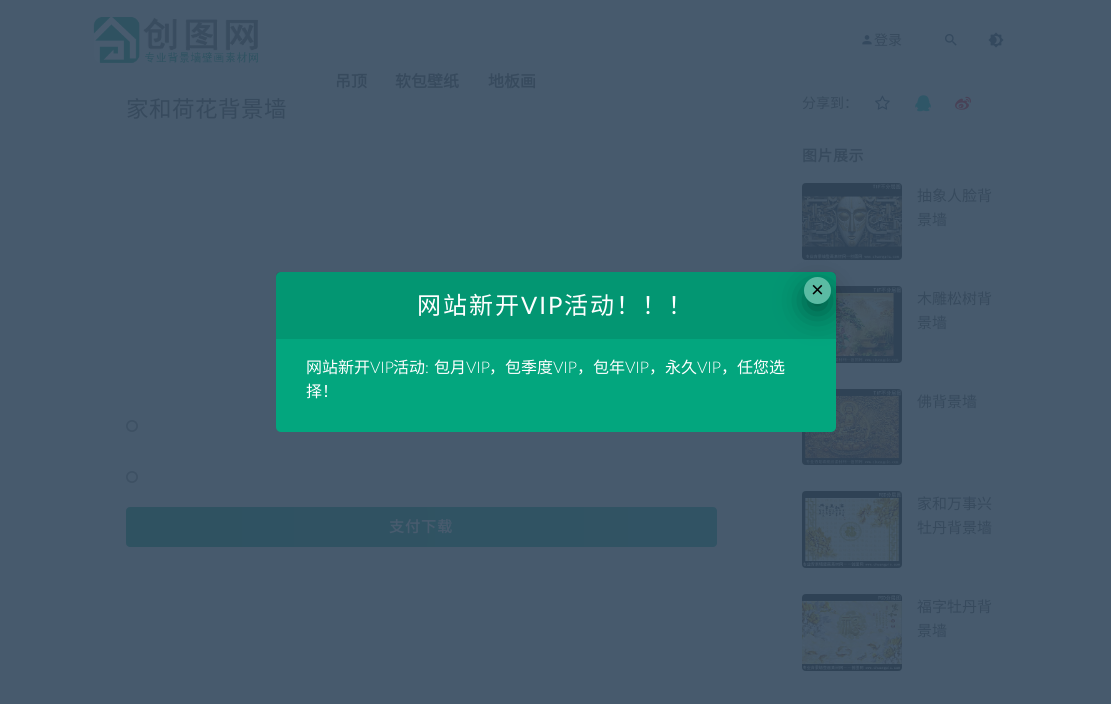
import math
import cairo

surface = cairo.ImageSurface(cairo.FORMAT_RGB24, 1111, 704)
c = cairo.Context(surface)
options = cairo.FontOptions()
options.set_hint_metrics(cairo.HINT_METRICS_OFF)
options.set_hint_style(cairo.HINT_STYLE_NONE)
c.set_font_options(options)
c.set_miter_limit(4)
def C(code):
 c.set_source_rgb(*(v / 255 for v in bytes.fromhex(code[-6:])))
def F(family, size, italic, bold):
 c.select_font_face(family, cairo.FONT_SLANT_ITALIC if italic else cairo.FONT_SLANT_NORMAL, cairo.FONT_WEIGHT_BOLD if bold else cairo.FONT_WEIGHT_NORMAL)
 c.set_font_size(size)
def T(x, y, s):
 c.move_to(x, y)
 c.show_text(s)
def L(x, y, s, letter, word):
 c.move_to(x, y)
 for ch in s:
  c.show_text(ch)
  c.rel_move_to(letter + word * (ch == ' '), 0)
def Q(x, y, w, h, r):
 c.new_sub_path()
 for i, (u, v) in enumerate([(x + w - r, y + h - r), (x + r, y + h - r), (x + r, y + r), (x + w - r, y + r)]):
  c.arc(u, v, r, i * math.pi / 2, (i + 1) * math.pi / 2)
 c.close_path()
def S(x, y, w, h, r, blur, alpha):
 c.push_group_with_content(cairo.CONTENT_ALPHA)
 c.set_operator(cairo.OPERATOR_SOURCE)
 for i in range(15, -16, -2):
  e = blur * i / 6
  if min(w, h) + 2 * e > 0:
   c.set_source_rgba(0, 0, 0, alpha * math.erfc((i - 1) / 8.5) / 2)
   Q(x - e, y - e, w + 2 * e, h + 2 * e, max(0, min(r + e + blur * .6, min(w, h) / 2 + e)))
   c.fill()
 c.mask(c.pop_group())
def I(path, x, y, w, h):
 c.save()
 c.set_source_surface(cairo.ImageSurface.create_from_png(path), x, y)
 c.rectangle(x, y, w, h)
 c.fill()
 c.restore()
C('475a6d')
c.paint()
I('1.png',93,17,165,46)
I('2.png',862,35,10,10)
F('Noto Sans CJK SC',14,0,0)
C('374a5d')
T(874,45,'登录')
I('3.png',945,34,12,12)
I('4.png',988,32,16,16)
F('Noto Sans CJK SC',16,0,1)
T(335,87,'吊顶')
T(395,87,'软包壁纸')
T(488,87,'地板画')
F('Noto Sans CJK SC',22.5,0,0)
L(126,117,'家和荷花背景墙',.5,0)
I('5.png',126,420,12,12)
I('5.png',126,471,12,12)
gradient = cairo.LinearGradient(126,527,717,527)
gradient.add_color_stop_rgba(0,0.184,0.322,0.38,1)
gradient.add_color_stop_rgba(1,0.192,0.325,0.392,1)
c.set_source(gradient)
Q(126,507,591,40,4)
c.fill()
F('Noto Sans CJK SC',15,0,1)
C('485b6e')
L(389,532,'支付下载',1,0)
F('Noto Sans CJK SC',14,0,0)
C('374a5d')
T(802,108,'分享到：')
I('6.png',875,95,15,15)
I('7.png',915,95,16,17)
I('8.png',955,96,16,14)
F('Noto Sans CJK SC',15,0,1)
L(802,161,'图片展示',.5,0)
I('9.png',802,183,100,77)
F('Noto Sans CJK SC',15,0,0)
T(917,201,'抽象人脸背')
T(917,225,'景墙')
I('10.png',836,286,66,77)
T(917,304,'木雕松树背')
T(917,328,'景墙')
I('11.png',802,389,100,76)
T(917,407,'佛背景墙')
I('12.png',802,491,100,77)
T(917,509,'家和万事兴')
T(917,533,'牡丹背景墙')
I('13.png',802,594,100,77)
T(917,612,'福字牡丹背')
T(917,636,'景墙')
C('03a67e')
Q(276,272,560,160,5)
c.fill()
c.set_source_rgba(0,0,0,0.1)
c.new_path()
c.move_to(279,272)
c.line_to(833,272)
c.curve_to(834.5,272,836,273.5,836,275)
c.line_to(836,339)
c.line_to(276,339)
c.line_to(276,275)
c.curve_to(276,273.5,277.5,272,279,272)
c.close_path()
c.fill()
c.save()
c.set_fill_rule(cairo.FILL_RULE_EVEN_ODD)
c.new_path()
c.move_to(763,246)
c.line_to(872,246)
c.line_to(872,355)
c.line_to(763,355)
c.close_path()
c.move_to(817.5,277)
c.curve_to(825,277,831,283,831,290.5)
c.curve_to(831,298,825,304,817.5,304)
c.curve_to(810,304,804,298,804,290.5)
c.curve_to(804,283,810,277,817.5,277)
c.close_path()
c.clip()
C('000000')
S(809,292,17,17,8.5,15,.5)
c.restore()
c.set_source_rgba(1,1,1,0.35)
c.arc(817.5,290.5,13.5,0,2 * math.pi)
c.fill()
F('Liberation Sans',22,0,0)
C('000000')
T(811,297,'×')
F('Noto Sans CJK SC',24,0,0)
C('ffffff')
L(417,314,'网站新开',2,0)
F('Lato',24,0,0)
L(521,314,'VIP',2,0)
F('Noto Sans CJK SC',24,0,0)
L(564,314,'活动！！！',2,0)
F('Noto Sans CJK SC',16,0,0)
T(306,373,'网站新开')
F('Lato Light',16,0,0)
T(370,373,'VIP')
F('Noto Sans CJK SC',16,0,0)
T(393,373,'活动')
F('Lato Light',16,0,0)
T(425,373,':')
F('Noto Sans CJK SC',16,0,0)
T(434,373,'包月')
F('Lato Light',16,0,0)
T(466,373,'VIP')
F('Noto Sans CJK SC',16,0,0)
T(489,373,'，包季度')
F('Lato Light',16,0,0)
T(553,373,'VIP')
F('Noto Sans CJK SC',16,0,0)
T(577,373,'，包年')
F('Lato Light',16,0,0)
T(625,373,'VIP')
F('Noto Sans CJK SC',16,0,0)
T(649,373,'，永久')
F('Lato Light',16,0,0)
T(697,373,'VIP')
F('Noto Sans CJK SC',16,0,0)
T(721,373,'，任您选')
T(306,397,'择！')
surface.write_to_png('o.png')
